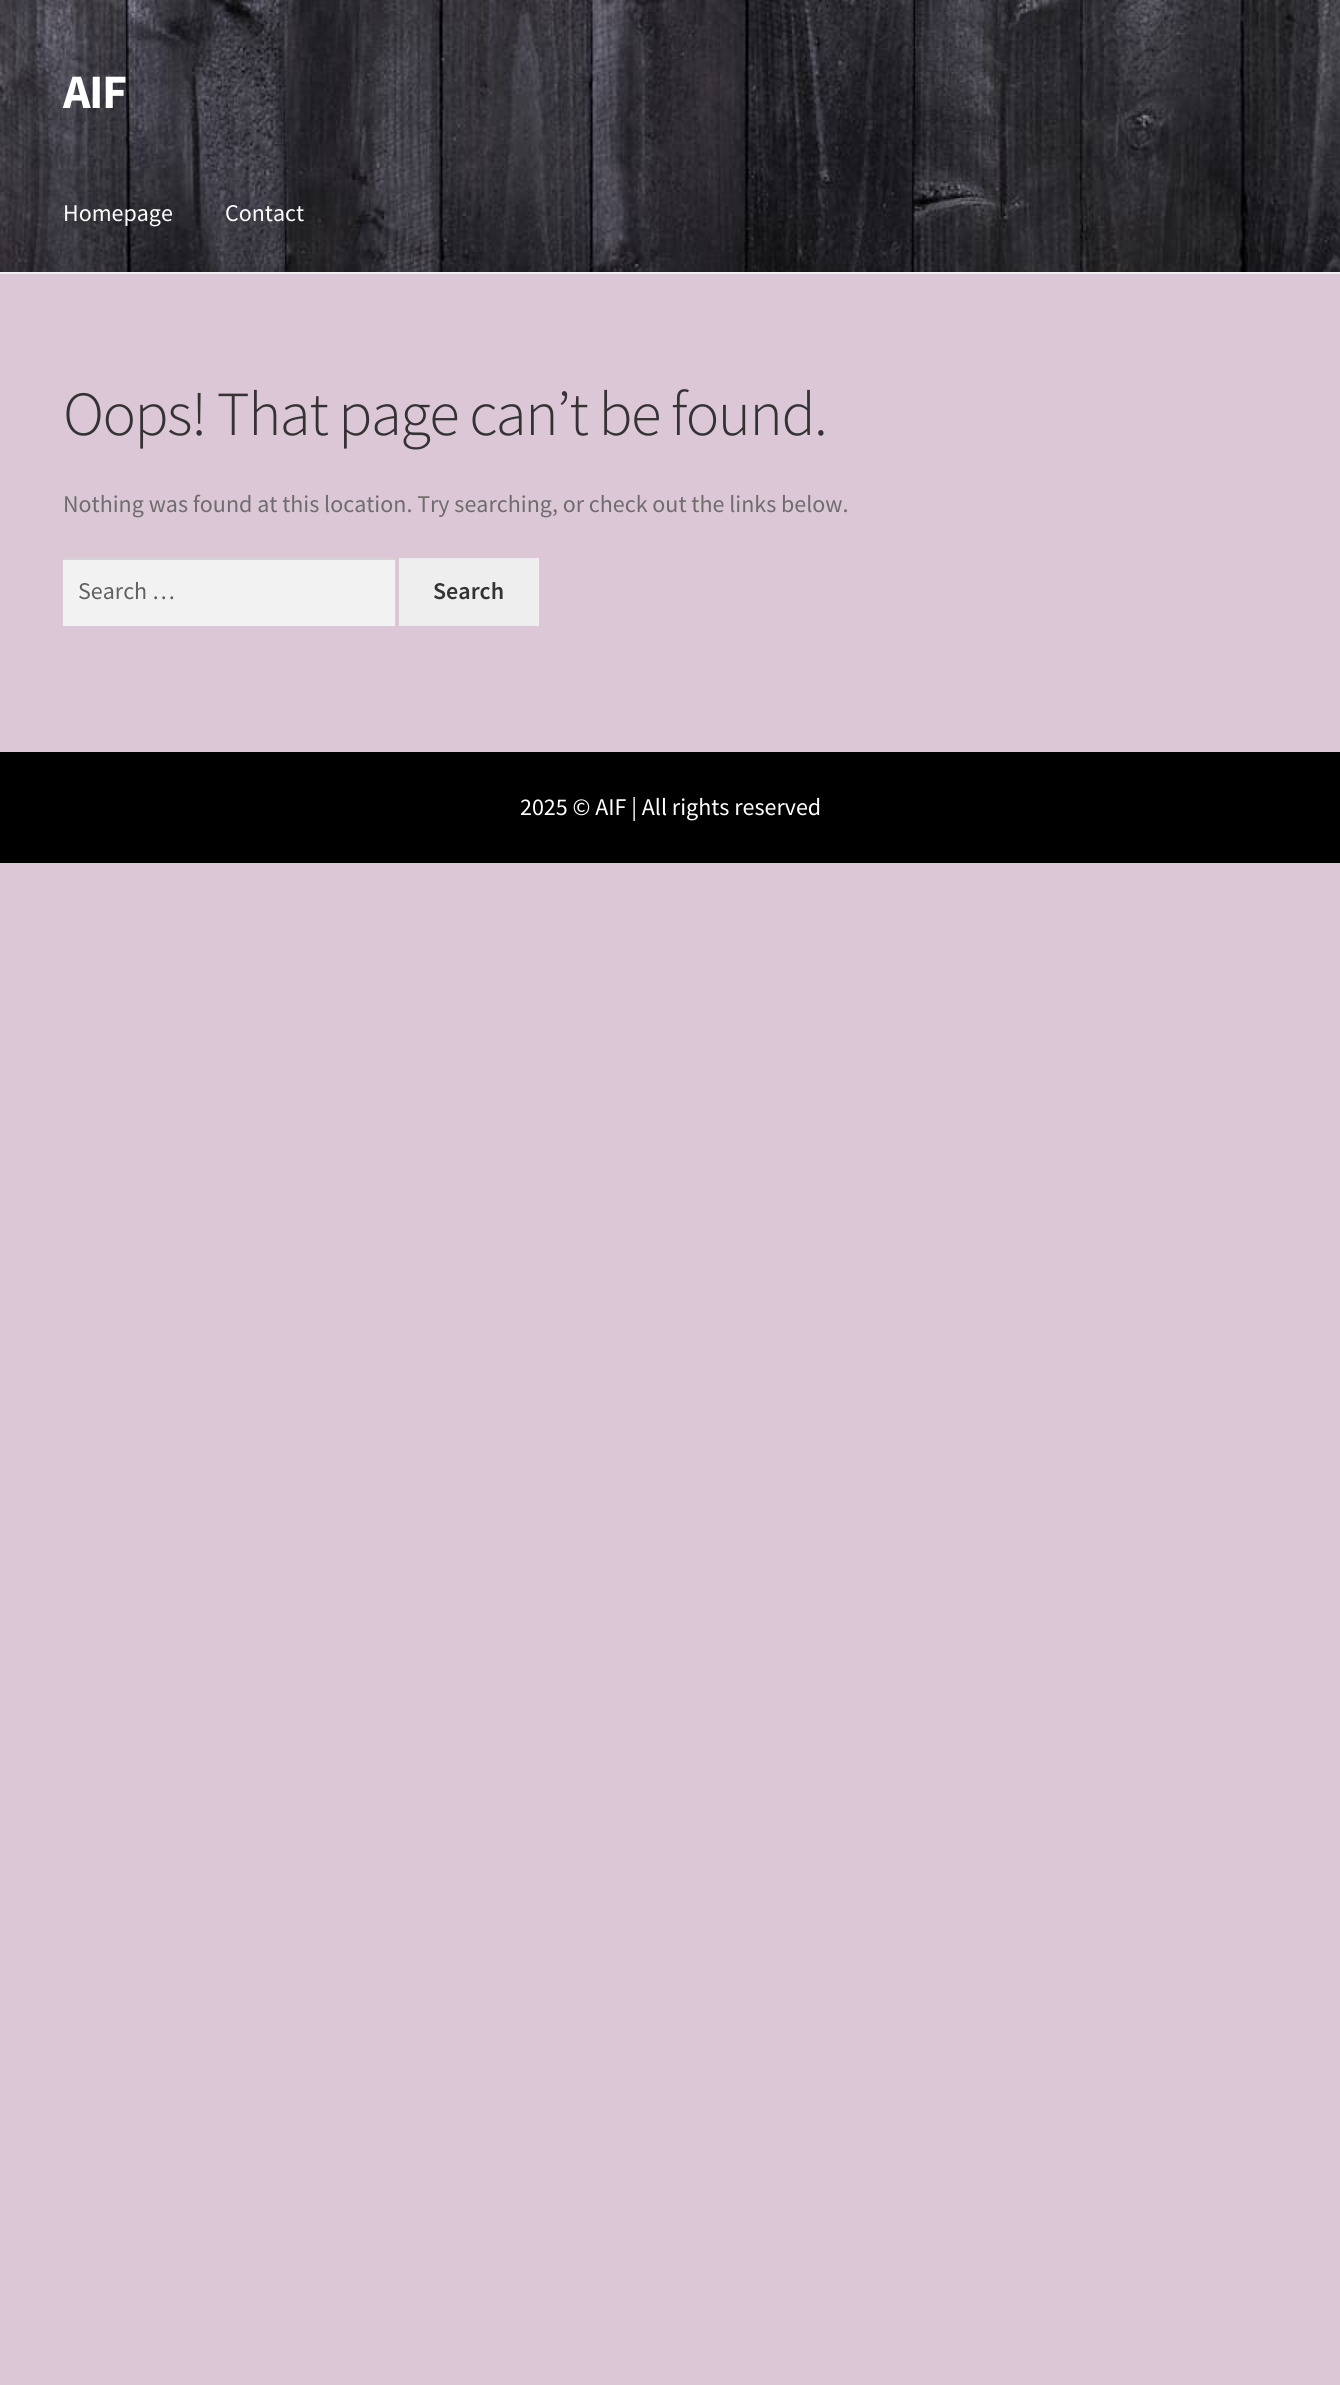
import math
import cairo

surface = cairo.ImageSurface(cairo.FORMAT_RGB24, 1340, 2385)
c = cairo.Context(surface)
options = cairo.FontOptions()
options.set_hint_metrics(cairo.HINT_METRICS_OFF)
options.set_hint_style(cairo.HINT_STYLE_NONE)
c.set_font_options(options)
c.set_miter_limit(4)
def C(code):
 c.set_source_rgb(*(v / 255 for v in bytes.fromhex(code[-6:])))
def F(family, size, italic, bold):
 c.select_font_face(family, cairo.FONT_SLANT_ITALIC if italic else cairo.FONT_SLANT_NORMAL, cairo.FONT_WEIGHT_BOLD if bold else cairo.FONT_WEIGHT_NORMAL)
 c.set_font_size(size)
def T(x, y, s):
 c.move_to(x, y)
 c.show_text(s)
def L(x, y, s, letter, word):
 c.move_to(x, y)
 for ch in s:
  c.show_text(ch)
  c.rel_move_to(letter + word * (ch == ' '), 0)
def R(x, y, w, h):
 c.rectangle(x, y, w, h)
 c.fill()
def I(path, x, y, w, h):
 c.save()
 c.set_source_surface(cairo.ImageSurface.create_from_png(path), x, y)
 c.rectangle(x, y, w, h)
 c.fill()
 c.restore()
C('dbc7d5')
c.paint()
I('1.png',0,0,1340,272)
C('f0f0f0')
R(0,272,1340,2)
F('Source Sans Pro',48,0,1)
C('ffffff')
L(63,108,'AIF',-1.5,0)
F('Source Sans Pro',24,0,0)
T(63,221,'Homepage')
T(225,221,'Contact')
F('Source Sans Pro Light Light',62.75,0,0)
C('333333')
L(63,435,'Oops! That page can’t be found.',-1.5,0)
F('Source Sans Pro',24,0,0)
C('6d6d6d')
T(63,512,'Nothing was found at this location. Try searching, or check out the links below.')
C('f2f2f2')
R(63,560,332,66)
C('d4d4d4')
R(63,558,332,2)
C('616161')
T(78,599,'Search …')
C('eeeeee')
R(399,558,140,68)
F('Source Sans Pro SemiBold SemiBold',24,0,0)
C('333333')
T(433,599,'Search')
C('000000')
R(0,752,1340,111)
F('Source Sans Pro',24,0,0)
C('ffffff')
T(520,815,'2025 © AIF | All rights reserved')
surface.write_to_png('o.png')
